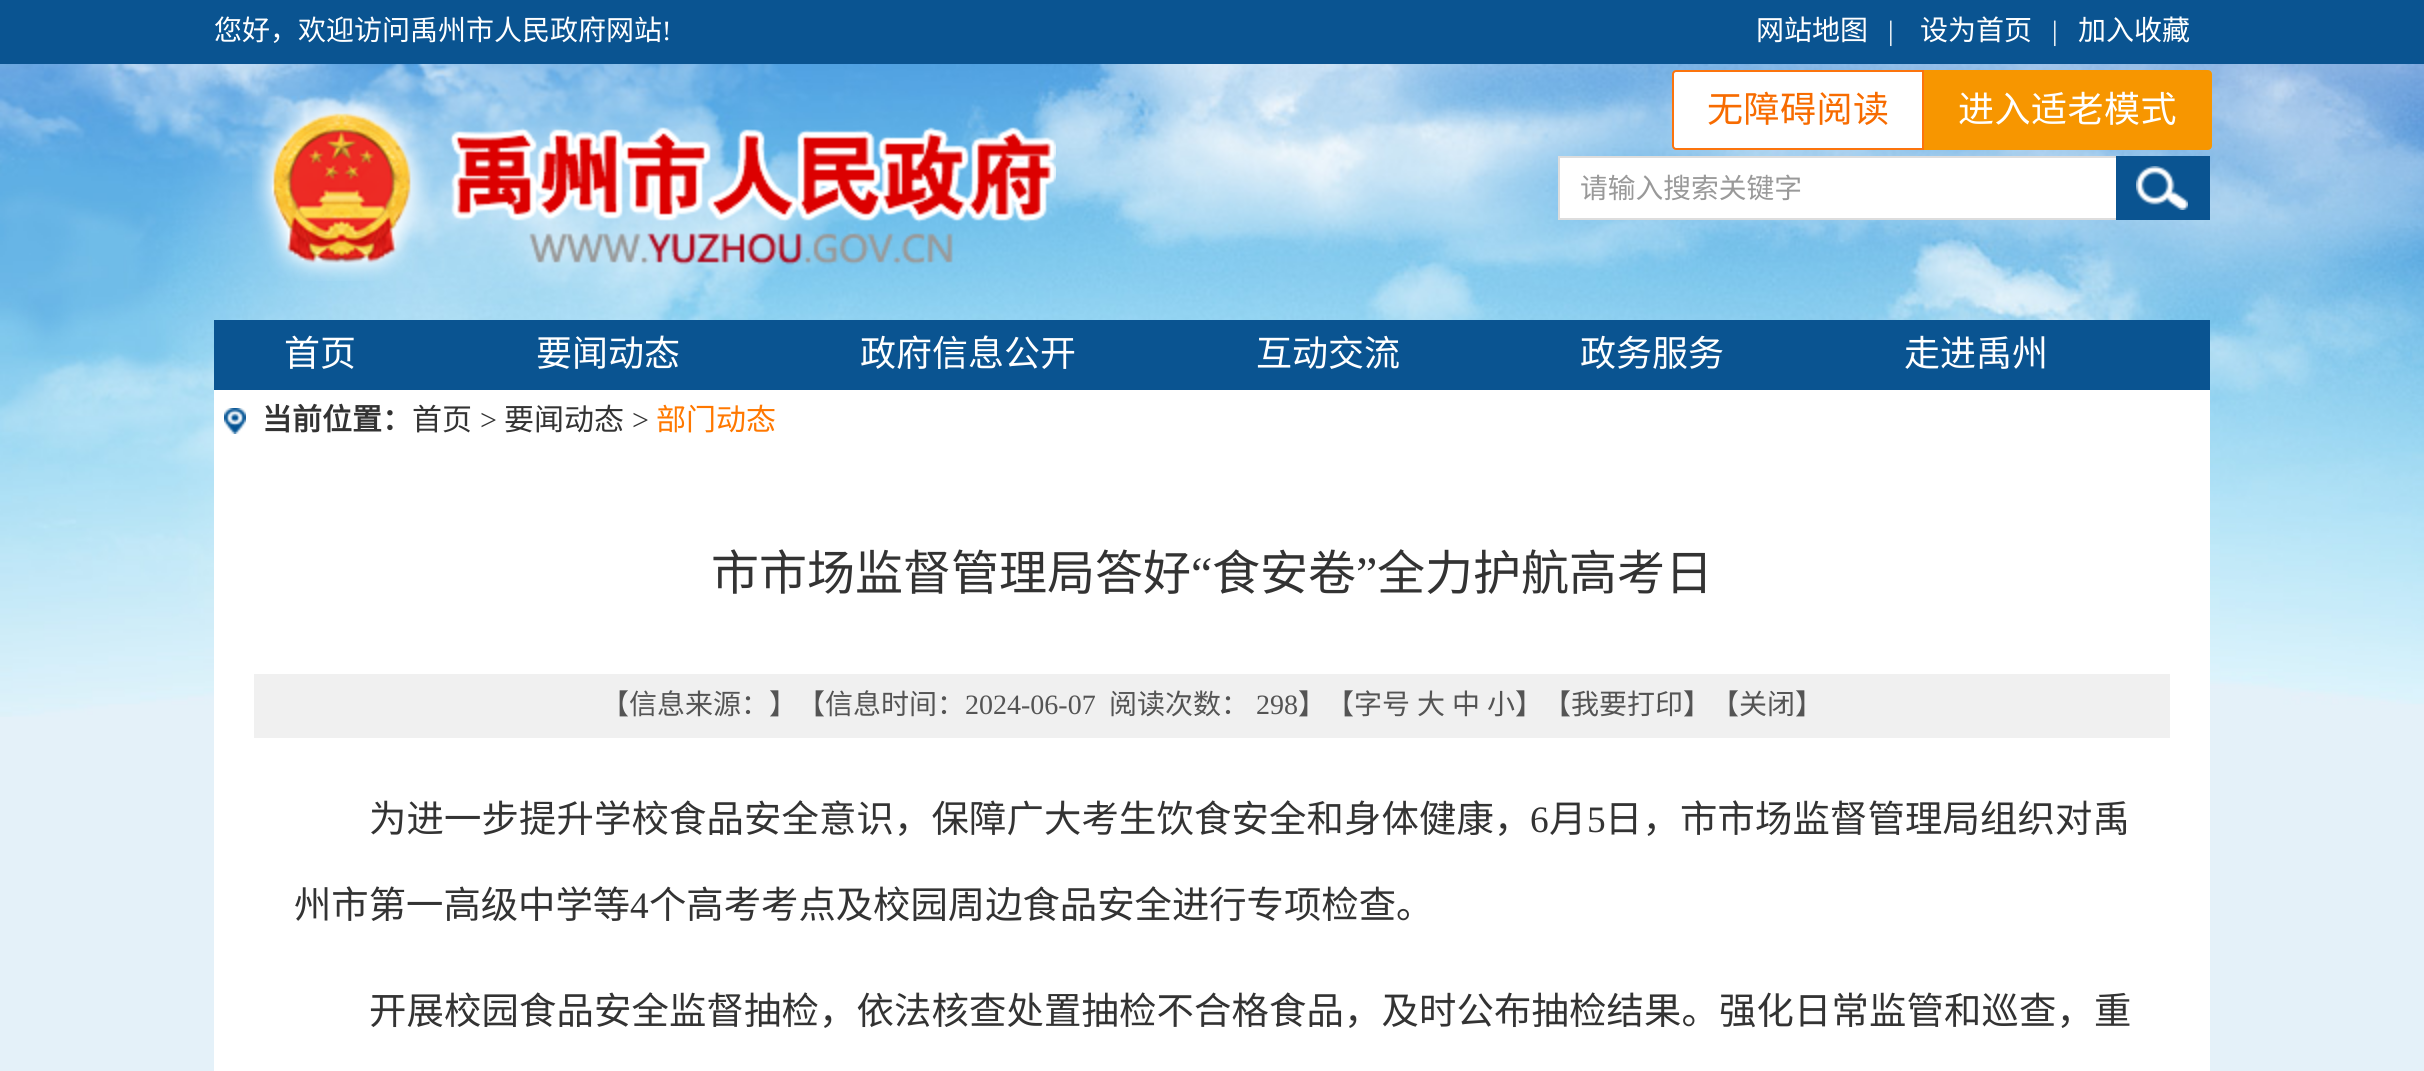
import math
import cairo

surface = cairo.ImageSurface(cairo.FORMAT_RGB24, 2424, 1071)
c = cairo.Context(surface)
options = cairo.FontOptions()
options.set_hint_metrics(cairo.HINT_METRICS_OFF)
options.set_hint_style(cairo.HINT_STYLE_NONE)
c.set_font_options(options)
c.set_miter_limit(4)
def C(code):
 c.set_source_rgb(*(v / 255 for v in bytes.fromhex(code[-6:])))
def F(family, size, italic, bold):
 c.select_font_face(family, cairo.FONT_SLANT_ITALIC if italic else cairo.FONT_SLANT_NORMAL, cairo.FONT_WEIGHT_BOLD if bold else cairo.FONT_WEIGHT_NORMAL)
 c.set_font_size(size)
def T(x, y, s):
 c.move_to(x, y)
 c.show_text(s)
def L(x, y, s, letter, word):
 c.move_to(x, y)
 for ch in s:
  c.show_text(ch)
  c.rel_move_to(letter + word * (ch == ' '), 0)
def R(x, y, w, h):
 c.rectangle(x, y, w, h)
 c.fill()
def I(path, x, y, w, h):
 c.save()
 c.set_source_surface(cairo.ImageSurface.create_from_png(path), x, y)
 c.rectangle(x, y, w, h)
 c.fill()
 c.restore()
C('e4f1f9')
c.paint()
I('1.png',0,64,2424,653)
C('0a5491')
R(0,0,2424,64)
F('Noto Sans CJK SC',28,0,0)
C('ffffff')
T(214,40,'您好，欢迎访问禹州市人民政府网站')
F('Liberation Serif',28,0,0)
T(662,40,'!')
F('Noto Sans CJK SC',28,0,0)
T(1756,40,'网站地图')
F('Liberation Serif',28,0,0)
T(1888,40,'|')
F('Noto Sans CJK SC',28,0,0)
T(1920,40,'设为首页')
F('Liberation Serif',28,0,0)
T(2052,40,'|')
F('Noto Sans CJK SC',28,0,0)
T(2078,40,'加入收藏')
I('2.png',252,94,804,187)
R(1560,158,556,60)
C('dddddd')
R(1558,156,558,2)
R(1558,218,558,2)
R(1558,156,2,64)
F('Noto Sans CJK SC',27.75,0,0)
C('999999')
T(1580,198,'请输入搜索关键字')
C('0a5491')
R(2116,156,94,64)
I('3.png',2136,166,52,44)
R(214,320,1996,70)
F('Noto Sans CJK SC',36,0,0)
C('ffffff')
T(284,366,'首页')
T(536,366,'要闻动态')
T(860,366,'政府信息公开')
T(1256,366,'互动交流')
T(1580,366,'政务服务')
T(1904,366,'走进禹州')
c.new_path()
c.move_to(1676,71)
c.line_to(1923,71)
c.line_to(1923,149)
c.line_to(1676,149)
c.curve_to(1674.5,149,1673,147.5,1673,146)
c.line_to(1673,74)
c.curve_to(1673,72.5,1674.5,71,1676,71)
c.close_path()
c.fill_preserve()
C('fc740d')
c.stroke()
C('f76b00')
L(1707,122,'无障碍阅读',.5,0)
C('f79600')
c.new_path()
c.move_to(1925,71)
c.line_to(2208,71)
c.curve_to(2209.5,71,2211,72.5,2211,74)
c.line_to(2211,146)
c.curve_to(2211,147.5,2209.5,149,2208,149)
c.line_to(1925,149)
c.close_path()
c.fill_preserve()
c.stroke()
C('ffffff')
L(1958,122,'进入适老模式',.5,0)
R(214,390,1996,681)
I('4.png',224,408,22,26)
F('Noto Sans CJK SC',30,0,1)
C('333333')
T(262,430,'当前位置：')
F('Noto Sans CJK SC',30,0,0)
T(412,430,'首页')
F('Liberation Serif',30,0,0)
T(480,430,'>')
F('Noto Sans CJK SC',30,0,0)
T(504,430,'要闻动态')
F('Liberation Serif',30,0,0)
T(632,430,'>')
F('Noto Sans CJK SC',30,0,0)
C('ff7800')
T(656,430,'部门动态')
F('Noto Sans CJK SC',48,0,0)
C('333333')
T(711,590,'市市场监督管理局答好')
F('Liberation Serif',48,0,0)
T(1191,590,'“')
F('Noto Sans CJK SC',48,0,0)
T(1212,590,'食安卷')
F('Liberation Serif',48,0,0)
T(1356,590,'”')
F('Noto Sans CJK SC',48,0,0)
T(1377,590,'全力护航高考日')
C('f0f0f0')
R(254,674,1916,64)
F('Noto Sans CJK SC',28,0,0)
C('545454')
T(601,714,'【信息来源：】【信息时间：')
F('Liberation Serif',28,0,0)
T(965,714,'2024-06-07')
F('Noto Sans CJK SC',28,0,0)
T(1109,714,'阅读次数：')
F('Liberation Serif',28,0,0)
T(1256,714,'298')
F('Noto Sans CJK SC',28,0,0)
T(1298,714,'】【字号')
T(1417,714,'大')
T(1452,714,'中')
T(1487,714,'小】【我要打印】【关闭】')
F('Noto Sans CJK SC',37.35,0,0)
C('333333')
L(369,832,'为进一步提升学校食品安全意识，保障广大考生饮食安全和身体健康，',.15,0)
F('Liberation Serif',37.35,0,0)
L(1530,832,'6',.15,0)
F('Noto Sans CJK SC',37.35,0,0)
L(1549,832,'月',.15,0)
F('Liberation Serif',37.35,0,0)
L(1587,832,'5',.15,0)
F('Noto Sans CJK SC',37.35,0,0)
L(1605,832,'日，市市场监督管理局组织对禹',.15,0)
T(294,918,'州市第一高级中学等')
F('Liberation Serif',37.35,0,0)
T(630,918,'4')
F('Noto Sans CJK SC',37.35,0,0)
T(649,918,'个高考考点及校园周边食品安全进行专项检查。')
L(369,1024,'开展校园食品安全监督抽检，依法核查处置抽检不合格食品，及时公布抽检结果。强化日常监管和巡查，重',.15,0)
surface.write_to_png('o.png')
